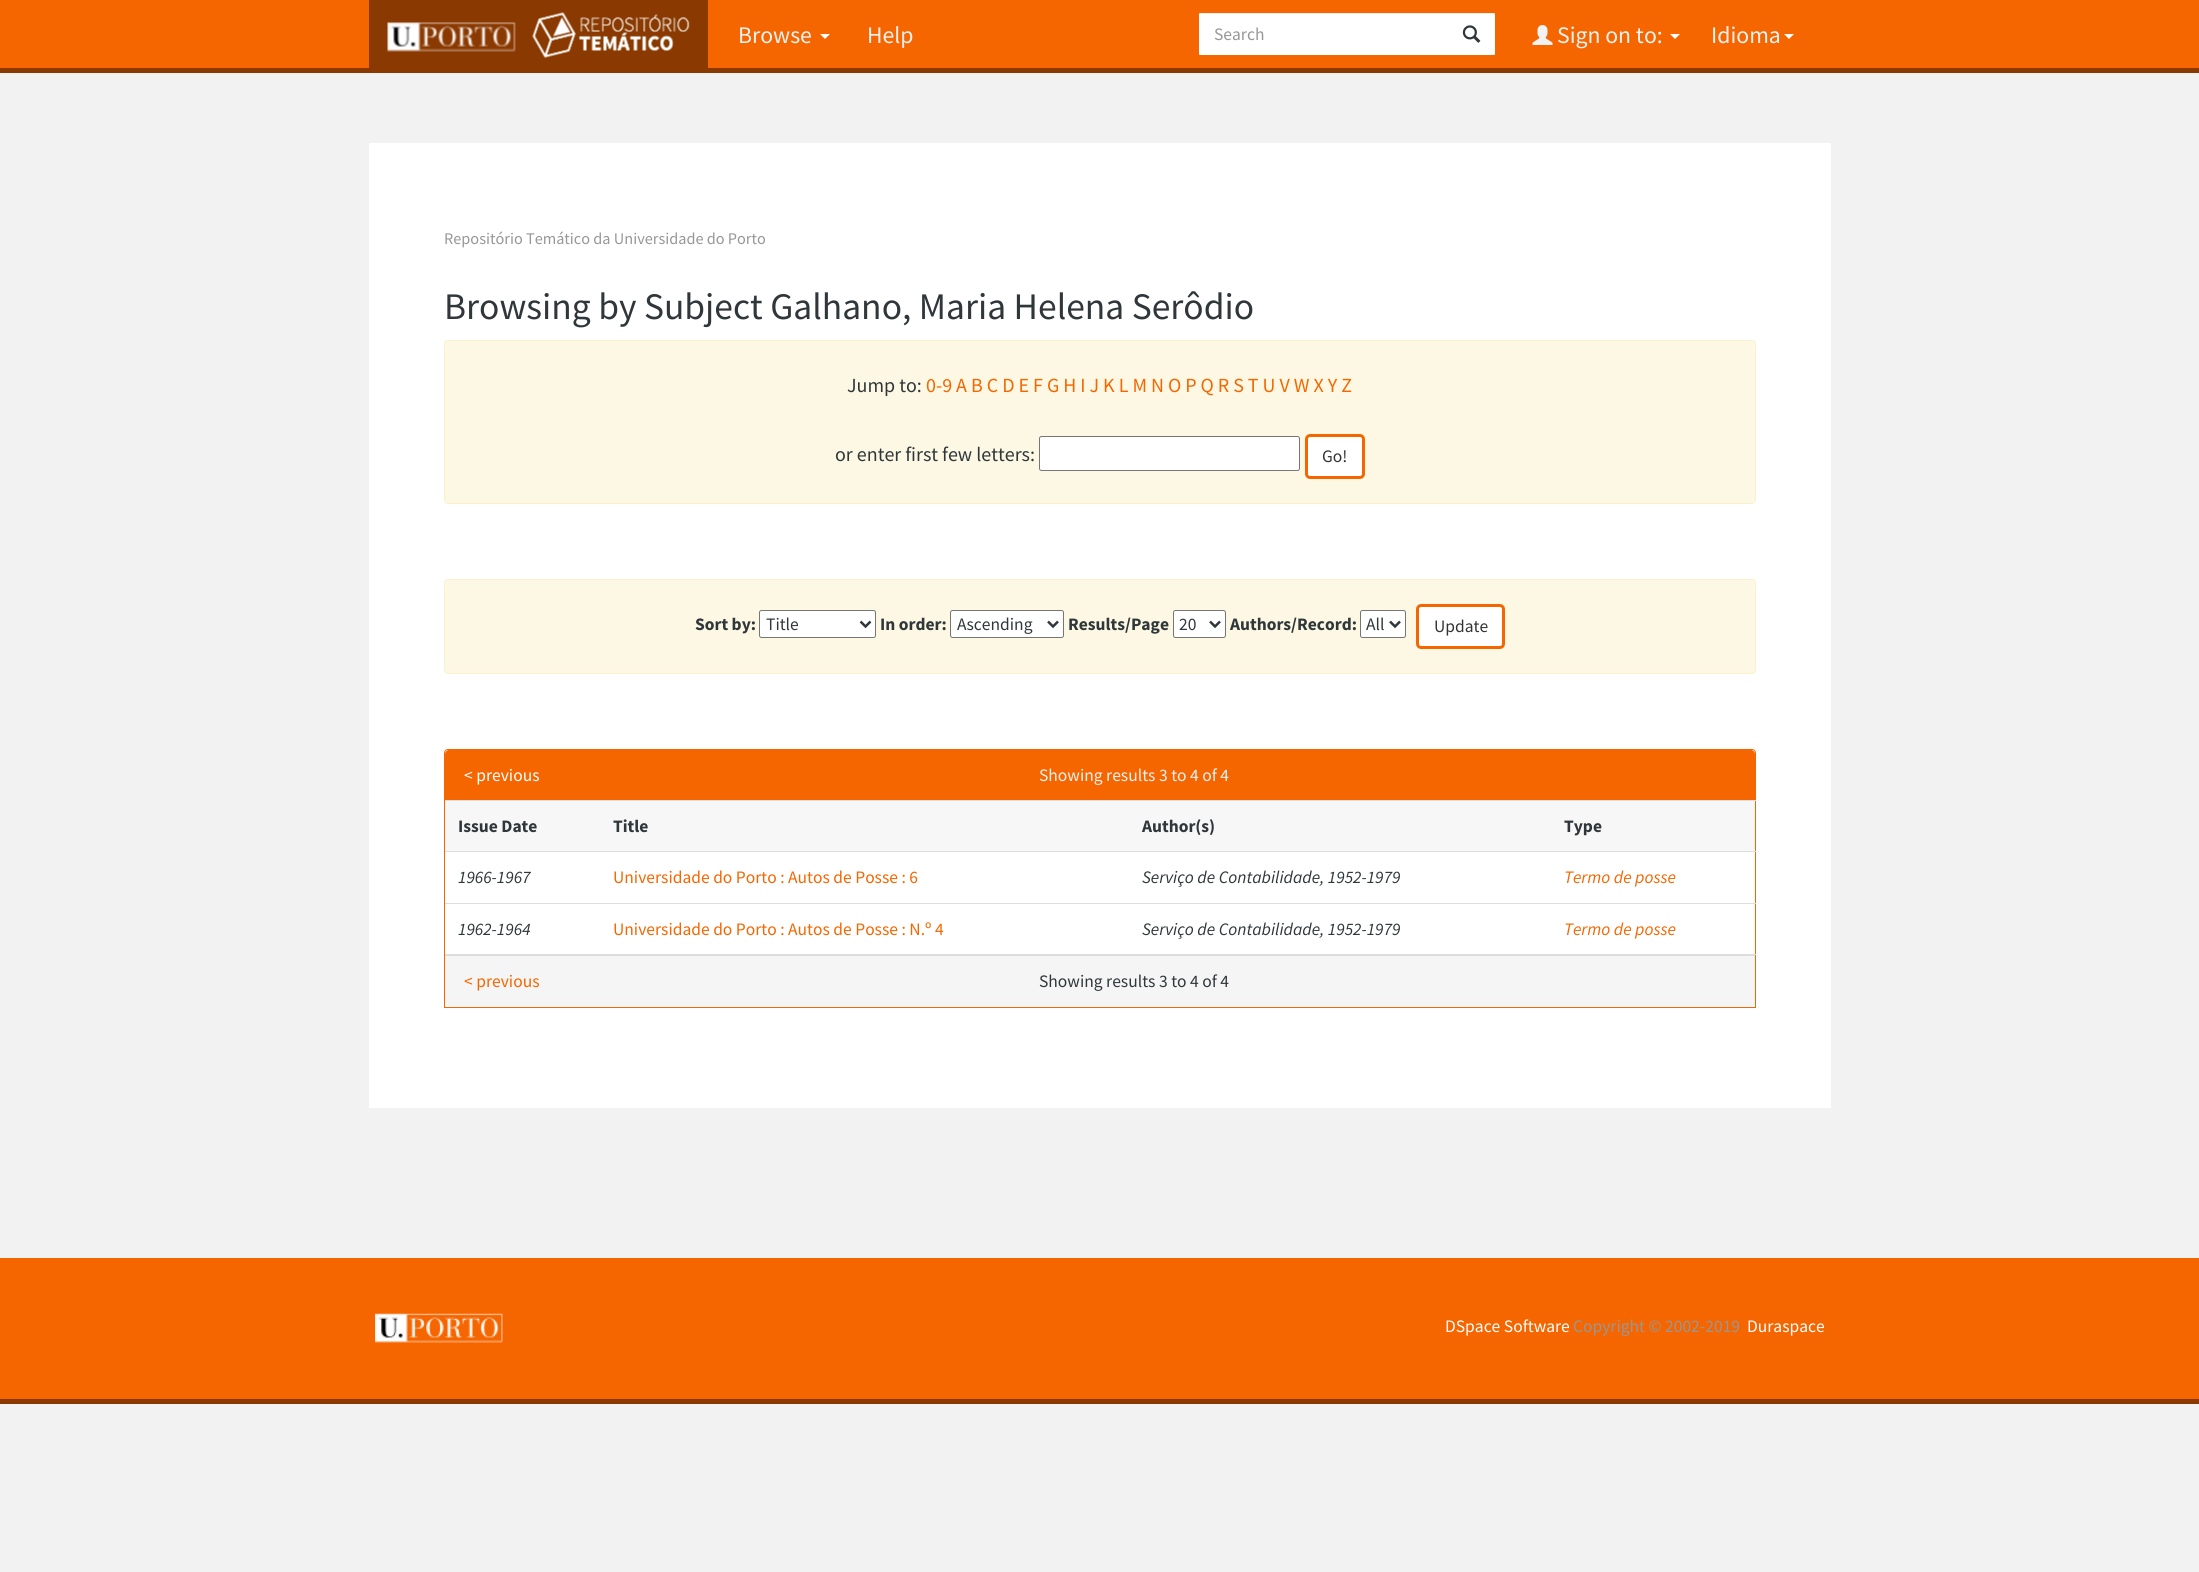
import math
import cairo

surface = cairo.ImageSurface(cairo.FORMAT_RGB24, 2199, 1572)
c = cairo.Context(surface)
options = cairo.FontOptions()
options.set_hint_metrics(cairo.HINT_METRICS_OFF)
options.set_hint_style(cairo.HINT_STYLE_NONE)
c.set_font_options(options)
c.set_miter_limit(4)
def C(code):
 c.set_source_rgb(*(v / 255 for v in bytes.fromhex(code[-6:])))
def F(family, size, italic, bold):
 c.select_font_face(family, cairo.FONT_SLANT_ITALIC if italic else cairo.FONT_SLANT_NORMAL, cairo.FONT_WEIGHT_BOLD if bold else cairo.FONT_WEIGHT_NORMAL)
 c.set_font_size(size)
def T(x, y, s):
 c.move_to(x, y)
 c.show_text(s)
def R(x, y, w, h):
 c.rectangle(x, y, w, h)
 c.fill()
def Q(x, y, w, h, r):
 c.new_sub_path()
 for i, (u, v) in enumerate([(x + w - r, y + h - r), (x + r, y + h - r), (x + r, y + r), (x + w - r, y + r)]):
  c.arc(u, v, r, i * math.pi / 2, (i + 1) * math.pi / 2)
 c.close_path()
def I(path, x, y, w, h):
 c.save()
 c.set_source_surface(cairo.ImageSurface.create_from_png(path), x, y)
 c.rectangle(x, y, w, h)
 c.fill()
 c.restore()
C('f2f2f2')
c.paint()
C('f56600')
R(0,0,2199,68)
C('8a3900')
R(0,68,2199,5)
R(369,0,339,68)
I('1.png',387,22,129,30)
I('2.png',532,12,158,46)
F('Source Sans Pro',23.75,0,0)
C('f2f2f2')
T(738,43,'Browse')
C('ffffff')
c.new_path()
c.move_to(820,34)
c.line_to(830,34)
c.line_to(825,39)
c.close_path()
c.fill()
C('f2f2f2')
T(867,43,'Help')
C('ffffff')
Q(1199,13,296,42,1)
c.fill()
c.set_source_rgba(0,0,0,0.07)
c.new_path()
c.move_to(1200,14)
c.line_to(1494,14)
c.line_to(1495,15)
c.curve_to(1495,14,1495,13,1494,13)
c.line_to(1200,13)
c.line_to(1199,13)
c.line_to(1199,15)
c.curve_to(1199,14,1199,14,1200,14)
c.close_path()
c.fill()
F('Source Sans Pro',17.5,0,0)
C('979797')
T(1214,40,'Search')
I('3.png',1462,25,19,18)
I('4.png',1532,25,21,20)
F('Source Sans Pro',23.75,0,0)
C('f2f2f2')
T(1557,43,'Sign on to:')
C('ffffff')
c.new_path()
c.move_to(1670,34)
c.line_to(1680,34)
c.line_to(1675,39)
c.close_path()
c.fill()
C('f2f2f2')
T(1711,43,'Idioma')
C('ffffff')
c.new_path()
c.move_to(1784,34)
c.line_to(1794,34)
c.line_to(1789,39)
c.close_path()
c.fill()
R(369,143,1462,965)
F('Source Sans Pro',16.25,0,0)
C('979797')
T(444,244,'Repositório Temático da Universidade do Porto')
F('Source Sans Pro',37.5,0,0)
C('2f373b')
T(444,319,'Browsing by Subject Galhano, Maria Helena Serôdio')
C('fcf8e3')
Q(444.5,340.5,1311,163,3.5)
c.fill_preserve()
C('faf2cc')
c.set_line_width(1)
c.stroke()
F('Source Sans Pro',20,0,0)
C('2f373b')
T(847,392,'Jump to:')
C('f56600')
T(926,392,'0-9 A B C D E F G H I J K L M N O P Q R S T U V W X Y Z')
C('2f373b')
T(835,461,'or enter first few letters:')
C('ffffff')
Q(1039.5,436.5,260,34,2)
c.fill_preserve()
C('767676')
c.stroke()
C('ffffff')
Q(1306.5,435.5,57,42,3.5)
c.fill_preserve()
C('f56600')
c.set_line_width(3)
c.stroke()
F('Source Sans Pro',17.5,0,0)
C('333333')
T(1322,462,'Go!')
C('fcf8e3')
Q(444.5,579.5,1311,94,3.5)
c.fill_preserve()
C('faf2cc')
c.set_line_width(1)
c.stroke()
F('Source Sans Pro',17.5,0,1)
C('2f373b')
T(695,630,'Sort by:')
C('ffffff')
Q(759.5,610.5,116,27,2)
c.fill_preserve()
C('767676')
c.stroke()
c.new_path()
c.move_to(860.5,621.5)
c.line_to(865.5,626.5)
c.line_to(870.5,621.5)
C('2f373b')
c.set_line_width(2.5)
c.stroke()
F('Source Sans Pro',17.5,0,0)
T(766,630,'Title')
F('Source Sans Pro',17.5,0,1)
T(880,630,'In order:')
C('ffffff')
Q(950.5,610.5,113,27,2)
c.fill_preserve()
C('767676')
c.set_line_width(1)
c.stroke()
c.new_path()
c.move_to(1048,621.5)
c.line_to(1053,626.5)
c.line_to(1058,621.5)
C('2f373b')
c.set_line_width(2.5)
c.stroke()
F('Source Sans Pro',17.5,0,0)
T(957,630,'Ascending')
F('Source Sans Pro',17.5,0,1)
T(1068,630,'Results/Page')
C('ffffff')
Q(1173.5,610.5,52,27,2)
c.fill_preserve()
C('767676')
c.set_line_width(1)
c.stroke()
c.new_path()
c.move_to(1210,621.5)
c.line_to(1215,626.5)
c.line_to(1220,621.5)
C('2f373b')
c.set_line_width(2.5)
c.stroke()
F('Source Sans Pro',17.5,0,0)
T(1179,630,'20')
F('Source Sans Pro',17.5,0,1)
T(1230,630,'Authors/Record:')
C('ffffff')
Q(1360.5,610.5,45,27,2)
c.fill_preserve()
C('767676')
c.set_line_width(1)
c.stroke()
c.new_path()
c.move_to(1390,621.5)
c.line_to(1395,626.5)
c.line_to(1400,621.5)
C('2f373b')
c.set_line_width(2.5)
c.stroke()
F('Source Sans Pro',17.5,0,0)
T(1366,630,'All')
C('ffffff')
Q(1417.5,605.5,86,42,3.5)
c.fill_preserve()
C('f56600')
c.set_line_width(3)
c.stroke()
C('333333')
T(1434,632,'Update')
c.new_path()
c.move_to(448,749.5)
c.line_to(1752,749.5)
c.curve_to(1754,749.5,1755.5,751,1755.5,753)
c.line_to(1755.5,1007.5)
c.line_to(444.5,1007.5)
c.line_to(444.5,753)
c.curve_to(444.5,751,446,749.5,448,749.5)
c.close_path()
C('f56600')
c.set_line_width(1)
c.stroke()
c.new_path()
c.move_to(449,750)
c.line_to(1751,750)
c.curve_to(1753,750,1755,752,1755,754)
c.line_to(1755,800)
c.line_to(445,800)
c.line_to(445,754)
c.curve_to(445,752,447,750,449,750)
c.close_path()
c.fill()
C('ffffff')
T(464,781,'< previous')
C('f2f2f2')
T(1039,781,'Showing results 3 to 4 of 4')
C('dddddd')
R(445,954,1311,1)
C('f7f7f7')
R(445,801,1310,50)
F('Source Sans Pro',17.5,0,1)
C('2f373b')
T(458,832,'Issue Date')
T(613,832,'Title')
T(1142,832,'Author(s)')
C('dddddd')
R(445,800,1311,1)
C('2f373b')
T(1564,832,'Type')
F('Source Sans Pro',17.5,1,0)
T(458,883,'1966-1967')
F('Source Sans Pro',17.5,0,0)
C('f56600')
T(613,883,'Universidade do Porto : Autos de Posse : 6')
F('Source Sans Pro',17.5,1,0)
C('2f373b')
T(1142,883,'Serviço de Contabilidade, 1952-1979')
C('dddddd')
R(445,851,1311,1)
C('f56600')
T(1564,883,'Termo de posse')
C('2f373b')
T(458,935,'1962-1964')
F('Source Sans Pro',17.5,0,0)
C('f56600')
T(613,935,'Universidade do Porto : Autos de Posse : N.º 4')
F('Source Sans Pro',17.5,1,0)
C('2f373b')
T(1142,935,'Serviço de Contabilidade, 1952-1979')
C('dddddd')
R(445,903,1311,1)
C('f56600')
T(1564,935,'Termo de posse')
C('f5f5f5')
c.new_path()
c.move_to(445,955)
c.line_to(1755,955)
c.line_to(1755,1002)
c.curve_to(1755,1004,1753,1006,1751,1006)
c.line_to(449,1006)
c.curve_to(447,1006,445,1004,445,1002)
c.close_path()
c.fill()
C('dddddd')
R(445,955,1310,1)
F('Source Sans Pro',17.5,0,0)
C('f56600')
T(464,987,'< previous')
C('2f373b')
T(1039,987,'Showing results 3 to 4 of 4')
C('f56600')
R(0,1258,2199,141)
C('8a3900')
R(0,1399,2199,5)
I('5.png',375,1313,128,30)
C('ffffff')
T(1445,1332,'DSpace Software')
C('979797')
T(1573,1332,'Copyright © 2002-2019')
C('ffffff')
T(1747,1332,'Duraspace')
surface.write_to_png('o.png')
